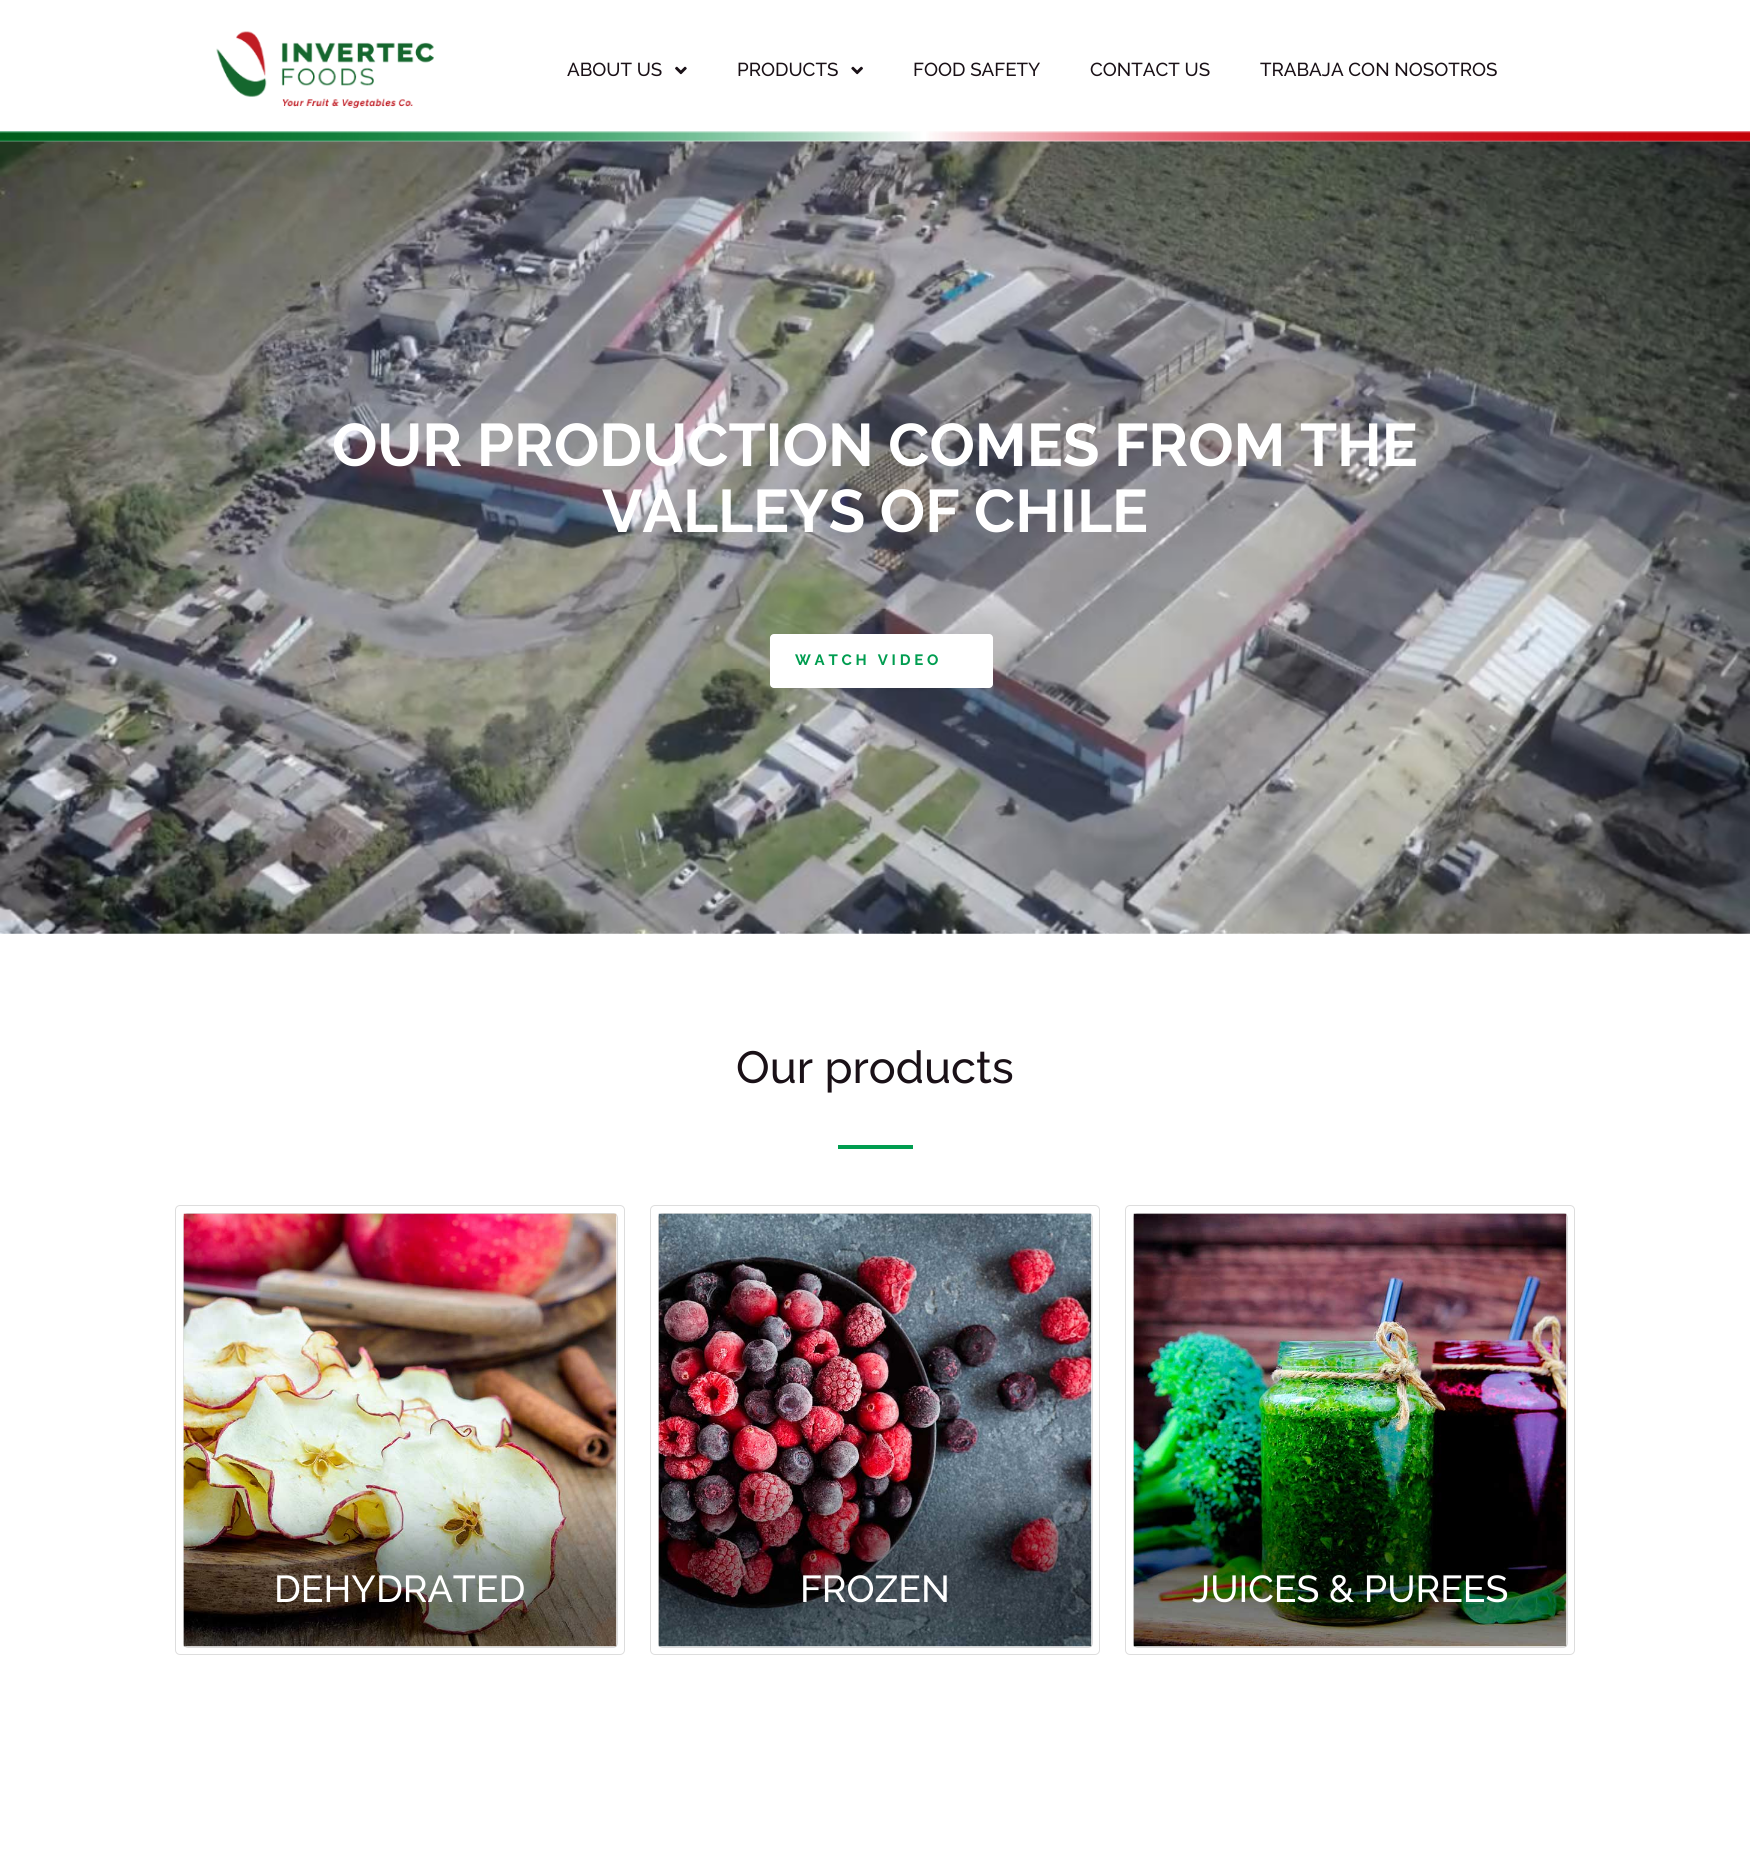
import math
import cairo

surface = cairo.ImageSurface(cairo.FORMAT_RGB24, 1750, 1864)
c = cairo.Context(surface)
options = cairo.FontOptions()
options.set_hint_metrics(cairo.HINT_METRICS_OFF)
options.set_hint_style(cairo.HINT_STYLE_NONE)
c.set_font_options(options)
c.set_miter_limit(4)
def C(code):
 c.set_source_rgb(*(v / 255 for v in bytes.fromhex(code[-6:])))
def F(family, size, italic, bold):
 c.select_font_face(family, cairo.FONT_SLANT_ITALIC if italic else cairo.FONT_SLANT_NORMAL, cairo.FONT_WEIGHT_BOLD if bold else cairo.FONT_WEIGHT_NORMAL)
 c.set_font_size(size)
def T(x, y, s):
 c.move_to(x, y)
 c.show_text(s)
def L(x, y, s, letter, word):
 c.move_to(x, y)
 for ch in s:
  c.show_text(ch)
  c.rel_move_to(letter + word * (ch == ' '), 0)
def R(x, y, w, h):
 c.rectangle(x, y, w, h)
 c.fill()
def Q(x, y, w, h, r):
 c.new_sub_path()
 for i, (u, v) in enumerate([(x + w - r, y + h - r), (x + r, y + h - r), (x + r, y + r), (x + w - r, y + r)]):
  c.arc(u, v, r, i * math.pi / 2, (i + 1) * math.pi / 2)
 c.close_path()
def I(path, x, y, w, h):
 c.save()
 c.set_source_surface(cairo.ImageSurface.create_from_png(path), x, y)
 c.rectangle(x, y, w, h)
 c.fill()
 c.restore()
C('ffffff')
c.paint()
I('5.png',0,141,1750,793)
I('1.png',0,131,1750,11)
I('2.png',216,31,218,78)
F('Raleway Medium',18.75,0,0)
C('1a1117')
T(567,76,'ABOUT US')
I('3.png',675,66,12,9)
T(737,76,'PRODUCTS')
I('4.png',851,66,12,9)
T(913,76,'FOOD SAFETY')
T(1090,76,'CONTACT US')
T(1260,76,'TRABAJA CON NOSOTROS')
F('Raleway',60,0,1)
C('ffffff')
T(332,466,'OUR PRODUCTION COMES FROM THE')
T(602,532,'VALLEYS OF CHILE')
Q(770,634,223,54,4)
c.fill()
F('Raleway',15,0,1)
C('009d50')
L(795,665,'WATCH VIDEO',3.75,0)
F('Raleway Medium',45,0,0)
C('1a1117')
T(736,1083,'Our products')
C('009d50')
R(838,1145,75,4)
Q(175.5,1205.5,449,449,4.5)
C('dddddd')
c.set_line_width(1)
c.stroke()
Q(183.5,1213.5,434,434,4.5)
c.stroke()
I('6.png',183,1213,434,434)
F('Raleway Medium',37.5,0,0)
C('ffffff')
T(274,1602,'DEHYDRATED')
Q(650.5,1205.5,449,449,4.5)
C('dddddd')
c.stroke()
Q(658.5,1213.5,434,434,4.5)
c.stroke()
I('7.png',658,1213,434,434)
C('ffffff')
T(800,1602,'FROZEN')
Q(1125.5,1205.5,449,449,4.5)
C('dddddd')
c.stroke()
Q(1133.5,1213.5,434,434,4.5)
c.stroke()
I('8.png',1133,1213,434,434)
C('ffffff')
T(1192,1602,'JUICES & PUREES')
surface.write_to_png('o.png')
